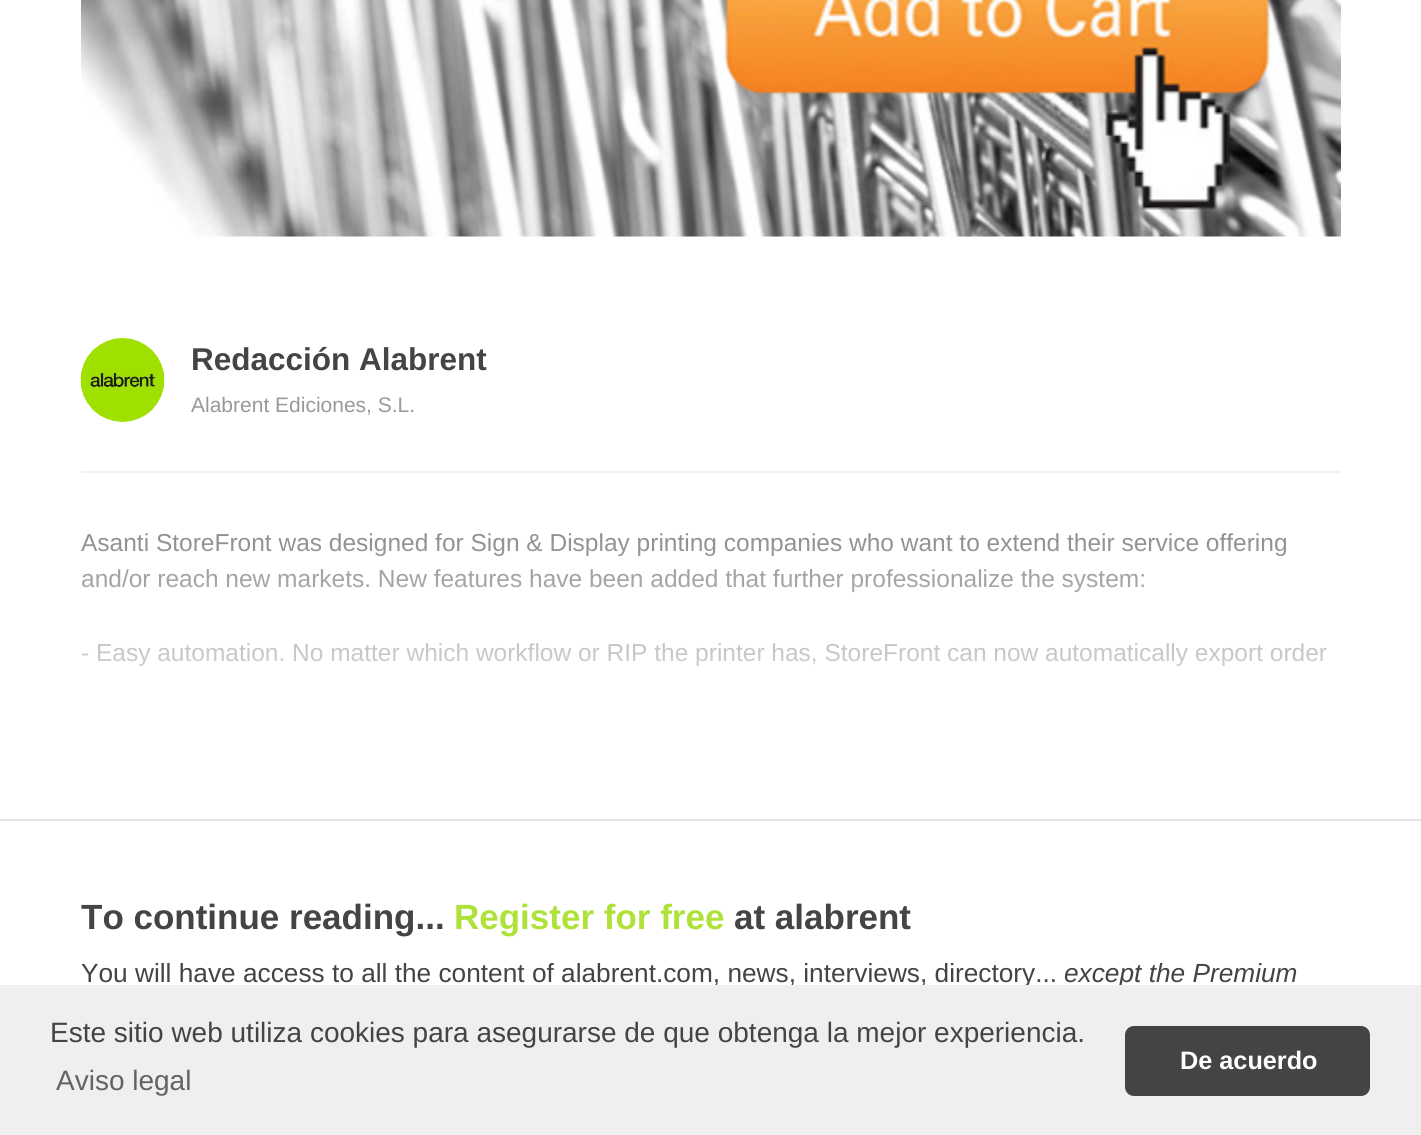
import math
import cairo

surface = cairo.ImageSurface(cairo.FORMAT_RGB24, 1421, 1135)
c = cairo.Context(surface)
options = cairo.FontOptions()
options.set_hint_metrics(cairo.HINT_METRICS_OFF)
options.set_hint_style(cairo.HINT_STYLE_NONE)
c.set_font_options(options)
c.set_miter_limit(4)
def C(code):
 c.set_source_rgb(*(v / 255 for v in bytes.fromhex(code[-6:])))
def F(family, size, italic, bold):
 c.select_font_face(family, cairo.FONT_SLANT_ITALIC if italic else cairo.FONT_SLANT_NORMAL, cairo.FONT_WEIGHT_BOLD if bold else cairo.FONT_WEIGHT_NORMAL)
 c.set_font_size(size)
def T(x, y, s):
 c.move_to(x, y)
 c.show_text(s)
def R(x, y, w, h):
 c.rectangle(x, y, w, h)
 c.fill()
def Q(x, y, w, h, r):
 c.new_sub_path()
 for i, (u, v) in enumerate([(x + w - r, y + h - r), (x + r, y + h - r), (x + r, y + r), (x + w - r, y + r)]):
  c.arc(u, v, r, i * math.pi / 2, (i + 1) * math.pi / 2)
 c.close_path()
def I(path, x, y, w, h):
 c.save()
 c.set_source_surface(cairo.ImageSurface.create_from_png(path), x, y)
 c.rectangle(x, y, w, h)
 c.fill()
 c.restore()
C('ffffff')
c.paint()
I('1.png',81,0,1260,237)
I('2.png',80,338,85,84)
F('Liberation Sans',31.5,0,1)
C('444444')
T(191,370,'Redacción Alabrent')
F('Liberation Sans',21,0,0)
C('999999')
T(191,412,'Alabrent Ediciones, S.L.')
C('eeeeee')
R(81,471,1260,2)
F('Liberation Sans',24.5,0,0)
C('555555')
T(81,551,'Asanti StoreFront was designed for Sign & Display printing companies who want to extend their service offering')
T(81,587,'and/or reach new markets. New features have been added that further professionalize the system:')
T(81,661,'- Easy automation. No matter which workflow or RIP the printer has, StoreFront can now automatically export order')
gradient = cairo.LinearGradient(711,416,711,767)
gradient.add_color_stop_rgba(0,1,1,1,0)
gradient.add_color_stop_rgba(1,1,1,1,1)
c.set_source(gradient)
R(80,471,1261,196)
C('e5e5e5')
R(0,819,1421,2)
F('Liberation Sans',35,0,1)
C('444444')
T(81,929,'To continue reading...')
C('aee239')
T(454,929,'Register for free')
C('444444')
T(734,929,'at alabrent')
F('Liberation Sans',26.25,0,0)
T(81,982,'You will have access to all the content of alabrent.com, news, interviews, directory...')
F('Liberation Sans',26.25,1,0)
T(1064,982,'except the Premium')
C('efefef')
R(0,985,1421,150)
F('Liberation Sans',28,0,0)
C('444444')
T(50,1042,'Este sitio web utiliza cookies para asegurarse de que obtenga la mejor experiencia.')
C('636363')
T(56,1090,'Aviso legal')
C('444444')
Q(1125,1026,245,70,9)
c.fill()
F('Liberation Sans',25.25,0,1)
C('ffffff')
T(1180,1069,'De acuerdo')
surface.write_to_png('o.png')
